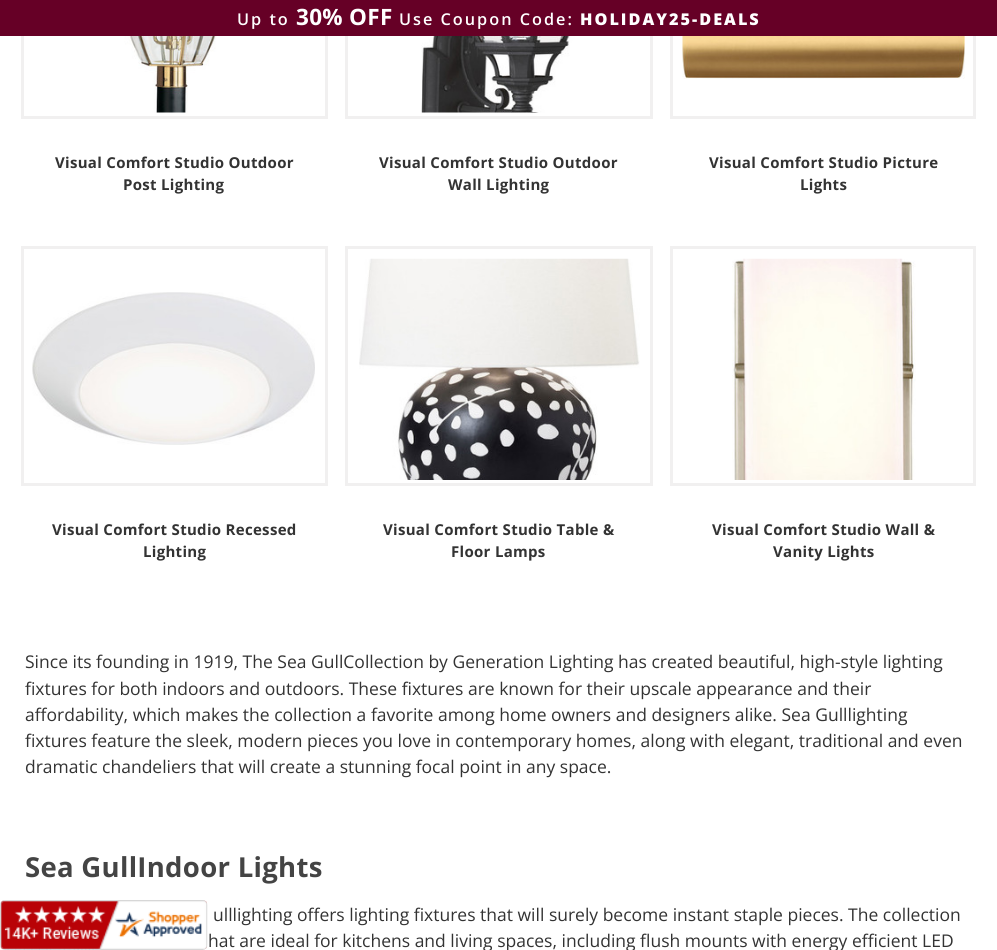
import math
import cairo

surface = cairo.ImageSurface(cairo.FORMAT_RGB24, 997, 950)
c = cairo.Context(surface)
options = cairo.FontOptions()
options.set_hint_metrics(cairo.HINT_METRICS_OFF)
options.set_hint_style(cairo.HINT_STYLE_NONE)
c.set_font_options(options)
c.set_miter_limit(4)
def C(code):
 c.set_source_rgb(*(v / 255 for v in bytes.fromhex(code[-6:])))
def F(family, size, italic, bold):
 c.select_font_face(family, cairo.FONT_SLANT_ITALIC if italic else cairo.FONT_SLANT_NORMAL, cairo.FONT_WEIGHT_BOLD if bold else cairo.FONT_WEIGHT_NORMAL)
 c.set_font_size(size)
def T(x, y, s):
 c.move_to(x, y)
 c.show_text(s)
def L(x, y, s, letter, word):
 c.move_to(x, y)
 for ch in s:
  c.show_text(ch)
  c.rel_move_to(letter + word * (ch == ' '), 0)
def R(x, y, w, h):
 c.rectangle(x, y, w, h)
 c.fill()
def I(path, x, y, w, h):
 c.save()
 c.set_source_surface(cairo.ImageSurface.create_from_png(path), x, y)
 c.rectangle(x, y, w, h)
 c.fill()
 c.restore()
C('ffffff')
c.paint()
c.rectangle(22.5,-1.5,304,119)
C('f1f0f0')
c.set_line_width(3)
c.stroke()
c.rectangle(346.5,-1.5,305,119)
c.stroke()
c.rectangle(671.5,-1.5,303,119)
c.stroke()
C('660026')
R(0,0,997,36)
F('Open Sans SemiBold',16.25,0,0)
C('ffffff')
L(237,25,'Up to',2,0)
F('Open Sans',22.5,0,1)
L(296,25,'30% OFF',.3,0)
F('Open Sans SemiBold',16.25,0,0)
L(399,25,'Use Coupon Code:',2,0)
F('Open Sans ExtraBold',16.25,0,0)
L(580,25,'HOLIDAY25-DEALS',2,0)
I('1.png',120,36,104,77)
F('Open Sans',15,0,1)
C('333333')
L(55,168,'Visual Comfort Studio Outdoor',.3,0)
L(123,190,'Post Lighting',.3,0)
I('2.png',421,36,156,77)
L(379,168,'Visual Comfort Studio Outdoor',.3,0)
L(448,190,'Wall Lighting',.3,0)
I('3.png',682,36,283,43)
L(709,168,'Visual Comfort Studio Picture',.3,0)
L(800,190,'Lights',.3,0)
c.rectangle(22.5,247.5,304,237)
C('f1f0f0')
c.stroke()
I('4.png',32,292,283,153)
C('333333')
L(52,535,'Visual Comfort Studio Recessed',.3,0)
L(143,557,'Lighting',.3,0)
c.rectangle(346.5,247.5,305,237)
C('f1f0f0')
c.stroke()
I('5.png',359,258,281,222)
C('333333')
L(383,535,'Visual Comfort Studio Table &',.3,0)
L(451,557,'Floor Lamps',.3,0)
c.rectangle(671.5,247.5,303,237)
C('f1f0f0')
c.stroke()
I('6.png',732,258,184,222)
C('333333')
L(712,535,'Visual Comfort Studio Wall &',.3,0)
L(773,557,'Vanity Lights',.3,0)
F('Open Sans',17.5,0,0)
T(25,668,'Since its founding in 1919, The Sea GullCollection by Generation Lighting has created beautiful, high-style lighting')
T(25,695,'fixtures for both indoors and outdoors. These fixtures are known for their upscale appearance and their')
T(25,721,'affordability, which makes the collection a favorite among home owners and designers alike. Sea Gulllighting')
T(25,747,'fixtures feature the sleek, modern pieces you love in contemporary homes, along with elegant, traditional and even')
T(25,773,'dramatic chandeliers that will create a stunning focal point in any space.')
F('Open Sans',27.5,0,1)
C('444444')
L(25,877,'Sea GullIndoor Lights',.3,0)
F('Open Sans',17.5,0,0)
C('333333')
T(213,921,'ulllighting offers lighting fixtures that will surely become instant staple pieces. The collection')
T(208,947,'hat are ideal for kitchens and living spaces, including flush mounts with energy efficient LED')
I('7.png',0,900,208,50)
surface.write_to_png('o.png')
